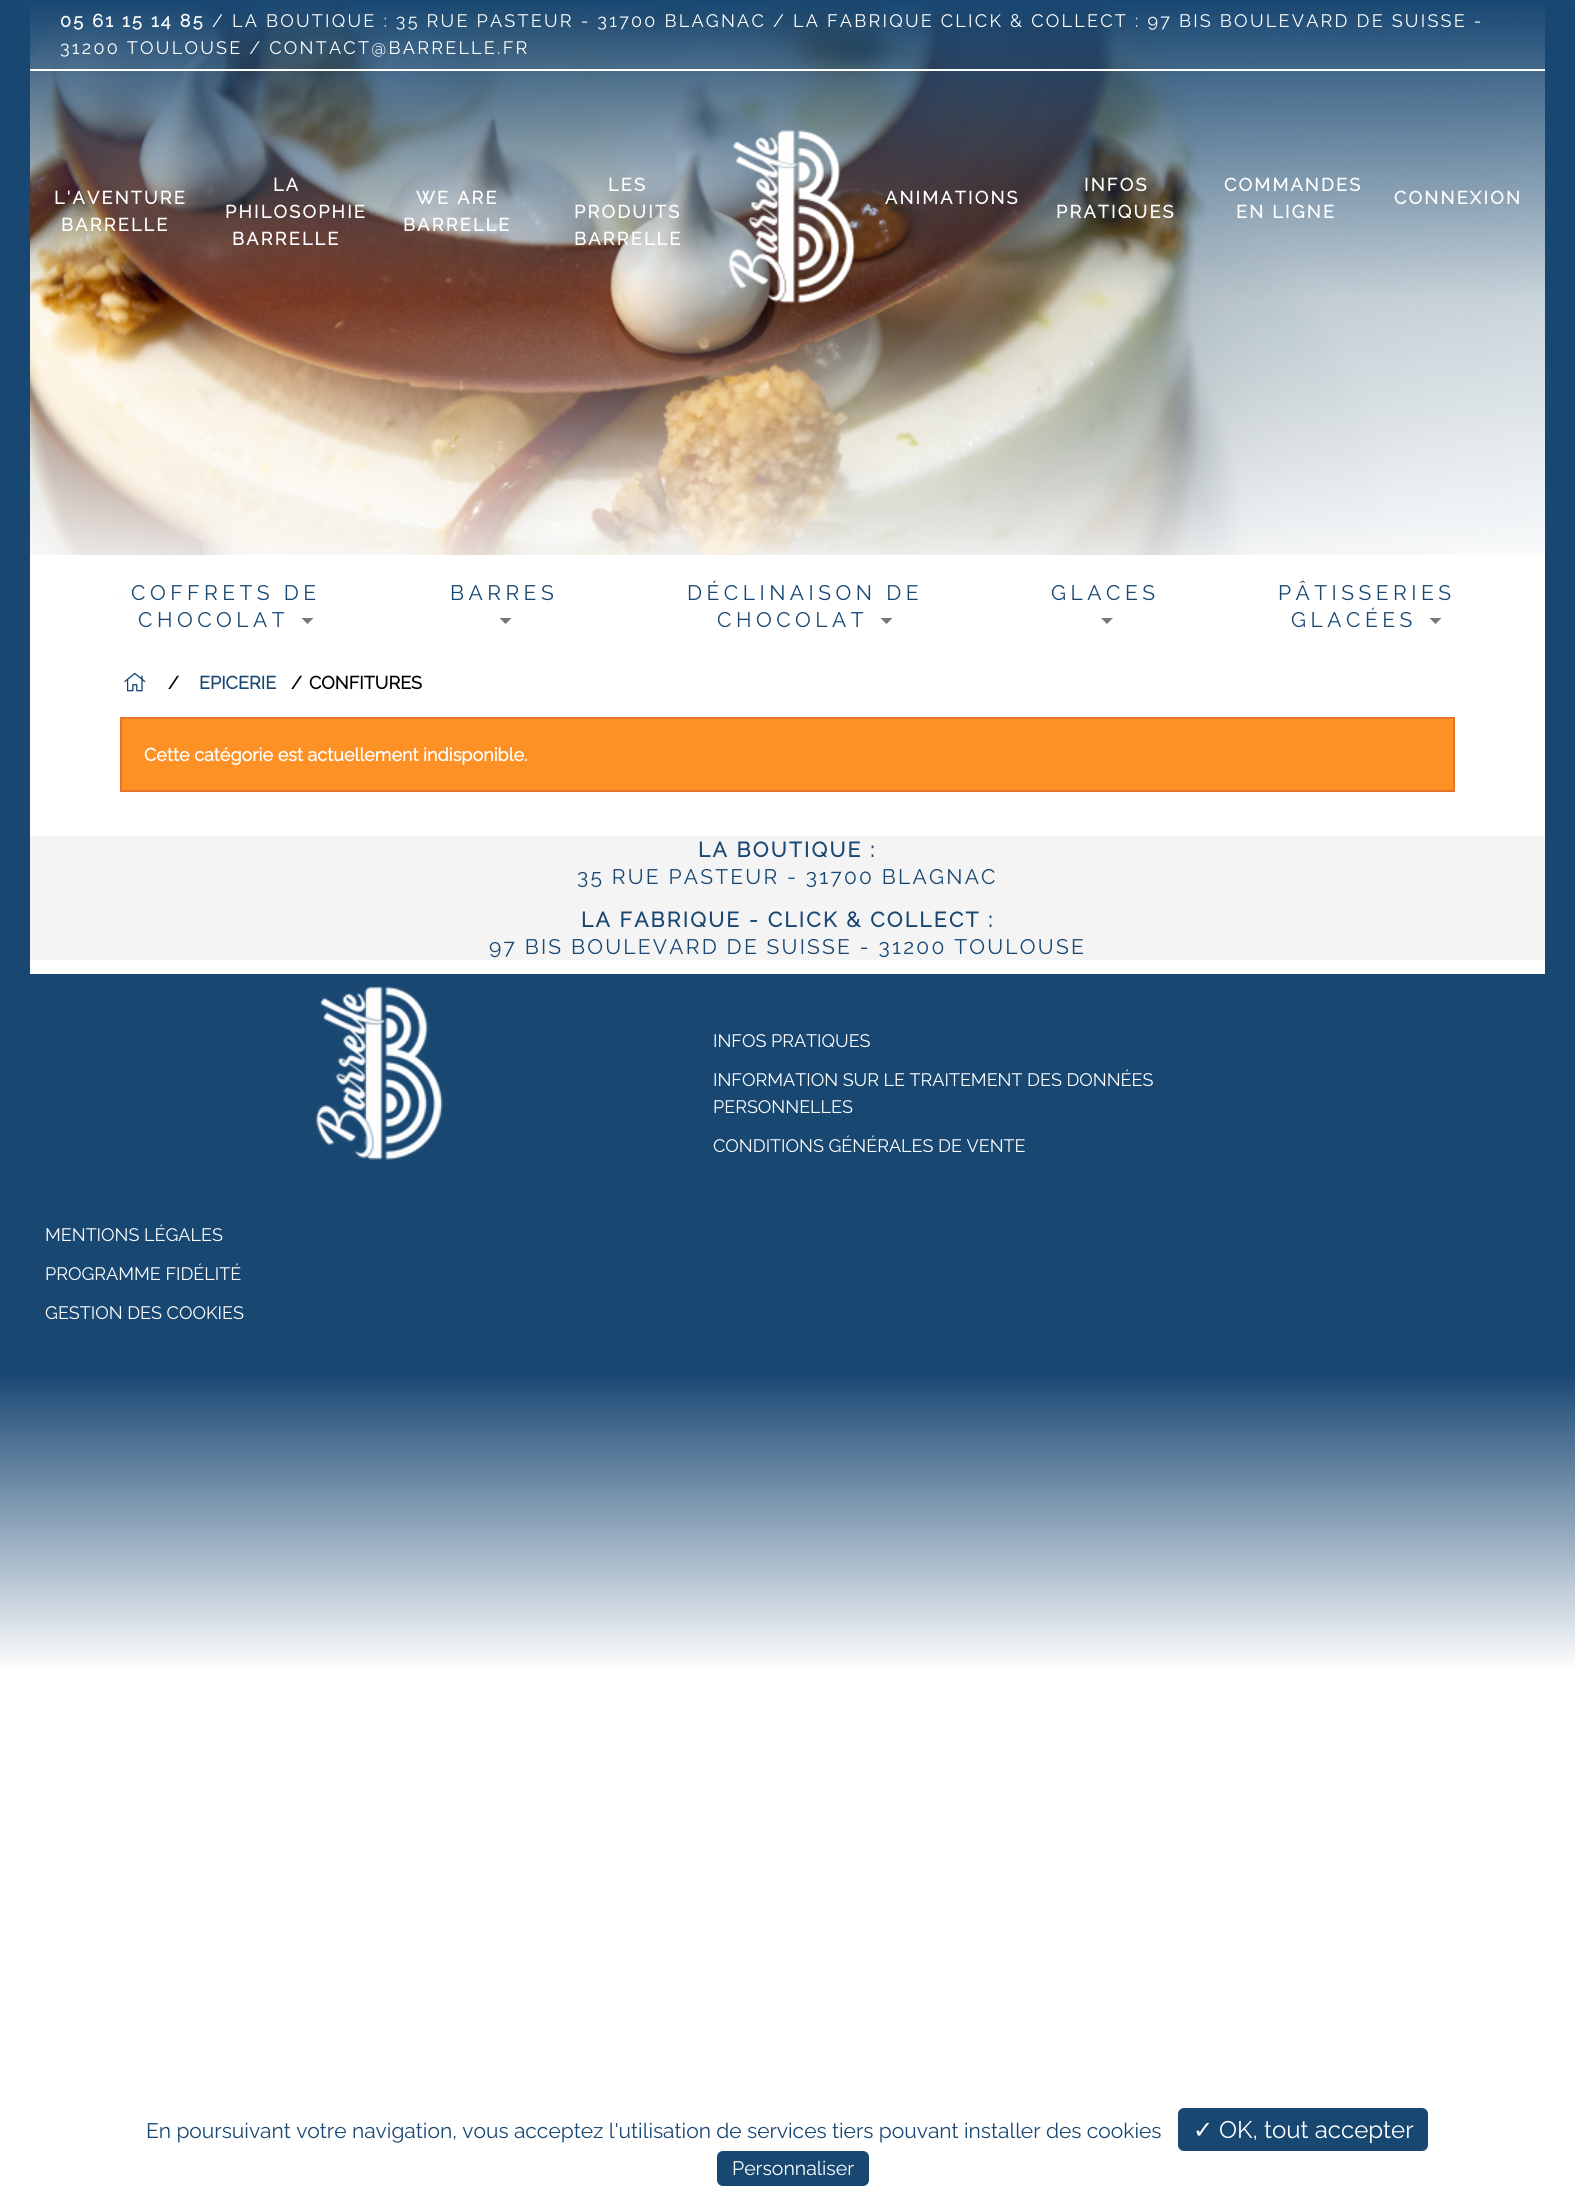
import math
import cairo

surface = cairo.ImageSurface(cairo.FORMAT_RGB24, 1575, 2197)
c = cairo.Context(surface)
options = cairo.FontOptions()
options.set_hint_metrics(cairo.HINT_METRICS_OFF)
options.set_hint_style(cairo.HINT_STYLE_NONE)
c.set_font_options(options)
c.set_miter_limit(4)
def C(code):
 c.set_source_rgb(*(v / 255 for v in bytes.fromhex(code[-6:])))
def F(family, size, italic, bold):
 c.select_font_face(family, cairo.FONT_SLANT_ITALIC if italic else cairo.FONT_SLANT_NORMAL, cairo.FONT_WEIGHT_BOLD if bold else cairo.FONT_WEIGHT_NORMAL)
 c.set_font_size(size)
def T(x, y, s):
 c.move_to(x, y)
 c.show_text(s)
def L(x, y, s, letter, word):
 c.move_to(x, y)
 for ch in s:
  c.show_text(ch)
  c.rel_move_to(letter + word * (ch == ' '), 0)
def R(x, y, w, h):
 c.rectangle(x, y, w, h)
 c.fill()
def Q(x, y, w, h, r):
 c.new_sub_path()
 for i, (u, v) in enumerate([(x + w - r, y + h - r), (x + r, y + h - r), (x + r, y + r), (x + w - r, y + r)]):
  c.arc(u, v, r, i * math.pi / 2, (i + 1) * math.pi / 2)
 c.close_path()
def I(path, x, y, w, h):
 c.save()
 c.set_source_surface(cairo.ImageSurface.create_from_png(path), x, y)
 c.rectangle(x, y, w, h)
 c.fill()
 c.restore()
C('ffffff')
c.paint()
I('1.png',0,0,1575,1666)
C('184772')
R(1545,4,30,1369)
R(0,4,30,1369)
C('ffffff')
R(30,69,1515,2)
F('Raleway',18,0,1)
L(60,27,'05 61 15 14 85',2.25,0)
F('Raleway Thin',18,0,0)
L(212,27,'/ LA BOUTIQUE : 35 RUE PASTEUR - 31700 BLAGNAC / LA FABRIQUE CLICK & COLLECT : 97 BIS BOULEVARD DE SUISSE -',2.25,0)
L(60,54,'31200 TOULOUSE / CONTACT@BARRELLE.FR',2.25,0)
F('Raleway',18,0,1)
L(54,204,'L\'AVENTURE',2.25,0)
L(61,231,'BARRELLE',2.25,0)
L(273,191,'LA',2.25,0)
L(225,218,'PHILOSOPHIE',2.25,0)
L(232,245,'BARRELLE',2.25,0)
L(416,204,'WE ARE',2.25,0)
L(403,231,'BARRELLE',2.25,0)
L(608,191,'LES',2.25,0)
L(574,218,'PRODUITS',2.25,0)
L(574,245,'BARRELLE',2.25,0)
I('2.png',728,130,128,174)
L(885,204,'ANIMATIONS',2.25,0)
L(1084,191,'INFOS',2.25,0)
L(1056,218,'PRATIQUES',2.25,0)
L(1224,191,'COMMANDES',2.25,0)
L(1236,218,'EN LIGNE',2.25,0)
L(1394,204,'CONNEXION',2.25,0)
R(30,555,1515,43)
F('Raleway Thin',21,0,0)
C('184772')
L(131,600,'COFFRETS DE',4.5,0)
L(138,627,'CHOCOLAT',4.5,0)
C('777777')
c.new_path()
c.move_to(301.5,618)
c.line_to(313.5,618)
c.line_to(307.5,624)
c.close_path()
c.fill()
C('184772')
L(450,600,'BARRES',4.5,0)
C('777777')
c.new_path()
c.move_to(499.5,618)
c.line_to(511.5,618)
c.line_to(505.5,624)
c.close_path()
c.fill()
C('184772')
L(687,600,'DÉCLINAISON DE',4.5,0)
L(717,627,'CHOCOLAT',4.5,0)
C('777777')
c.new_path()
c.move_to(880.5,618)
c.line_to(892.5,618)
c.line_to(886.5,624)
c.close_path()
c.fill()
C('184772')
L(1051,600,'GLACES',4.5,0)
C('777777')
c.new_path()
c.move_to(1101,618)
c.line_to(1113,618)
c.line_to(1107,624)
c.close_path()
c.fill()
C('184772')
L(1278,600,'PÂTISSERIES',4.5,0)
L(1291,627,'GLACÉES',4.5,0)
C('777777')
c.new_path()
c.move_to(1429.5,618)
c.line_to(1441.5,618)
c.line_to(1435.5,624)
c.close_path()
c.fill()
I('3.png',124,672,22,20)
F('Raleway',18,0,1)
C('000000')
T(168,689,'/')
C('184772')
T(199,689,'EPICERIE')
C('000000')
T(291,689,'/')
T(309,689,'CONFITURES')
C('fe9126')
c.rectangle(121,718,1333,73)
c.fill_preserve()
C('e4752b')
c.stroke()
C('ffffff')
T(144,761,'Cette catégorie est actuellement indisponible.')
C('f4f4f4')
R(30,836,1515,124)
F('Raleway',21,0,1)
C('184772')
L(698,857,'LA BOUTIQUE :',2.25,0)
F('Raleway Thin',21,0,0)
L(577,884,'35 RUE PASTEUR - 31700 BLAGNAC',2.25,0)
F('Raleway',21,0,1)
L(581,927,'LA FABRIQUE - CLICK & COLLECT :',2.25,0)
F('Raleway Thin',21,0,0)
L(489,954,'97 BIS BOULEVARD DE SUISSE - 31200 TOULOUSE',2.25,0)
R(30,974,1515,1)
R(30,975,1515,398)
I('4.png',316,986,128,174)
F('Raleway Thin',18,0,0)
C('ffffff')
T(713,1047,'INFOS PRATIQUES')
T(713,1086,'INFORMATION SUR LE TRAITEMENT DES DONNÉES')
T(713,1113,'PERSONNELLES')
T(713,1152,'CONDITIONS GÉNÉRALES DE VENTE')
T(45,1241,'MENTIONS LÉGALES')
T(45,1280,'PROGRAMME FIDÉLITÉ')
T(45,1319,'GESTION DES COOKIES')
F('Raleway Thin',21,0,0)
C('184772')
T(146,2138,'En poursuivant votre navigation, vous acceptez l\'utilisation de services tiers pouvant installer des cookies')
Q(1178,2108,250,43,6)
c.fill()
F('DejaVu Sans',24,0,0)
C('ffffff')
T(1193,2138,'✓')
F('Raleway Thin',24,0,0)
T(1219,2138,'OK, tout accepter')
C('184772')
Q(717,2151,152,35,6)
c.fill()
F('Raleway Thin',19.5,0,0)
C('ffffff')
T(732,2175,'Personnaliser')
surface.write_to_png('o.png')
